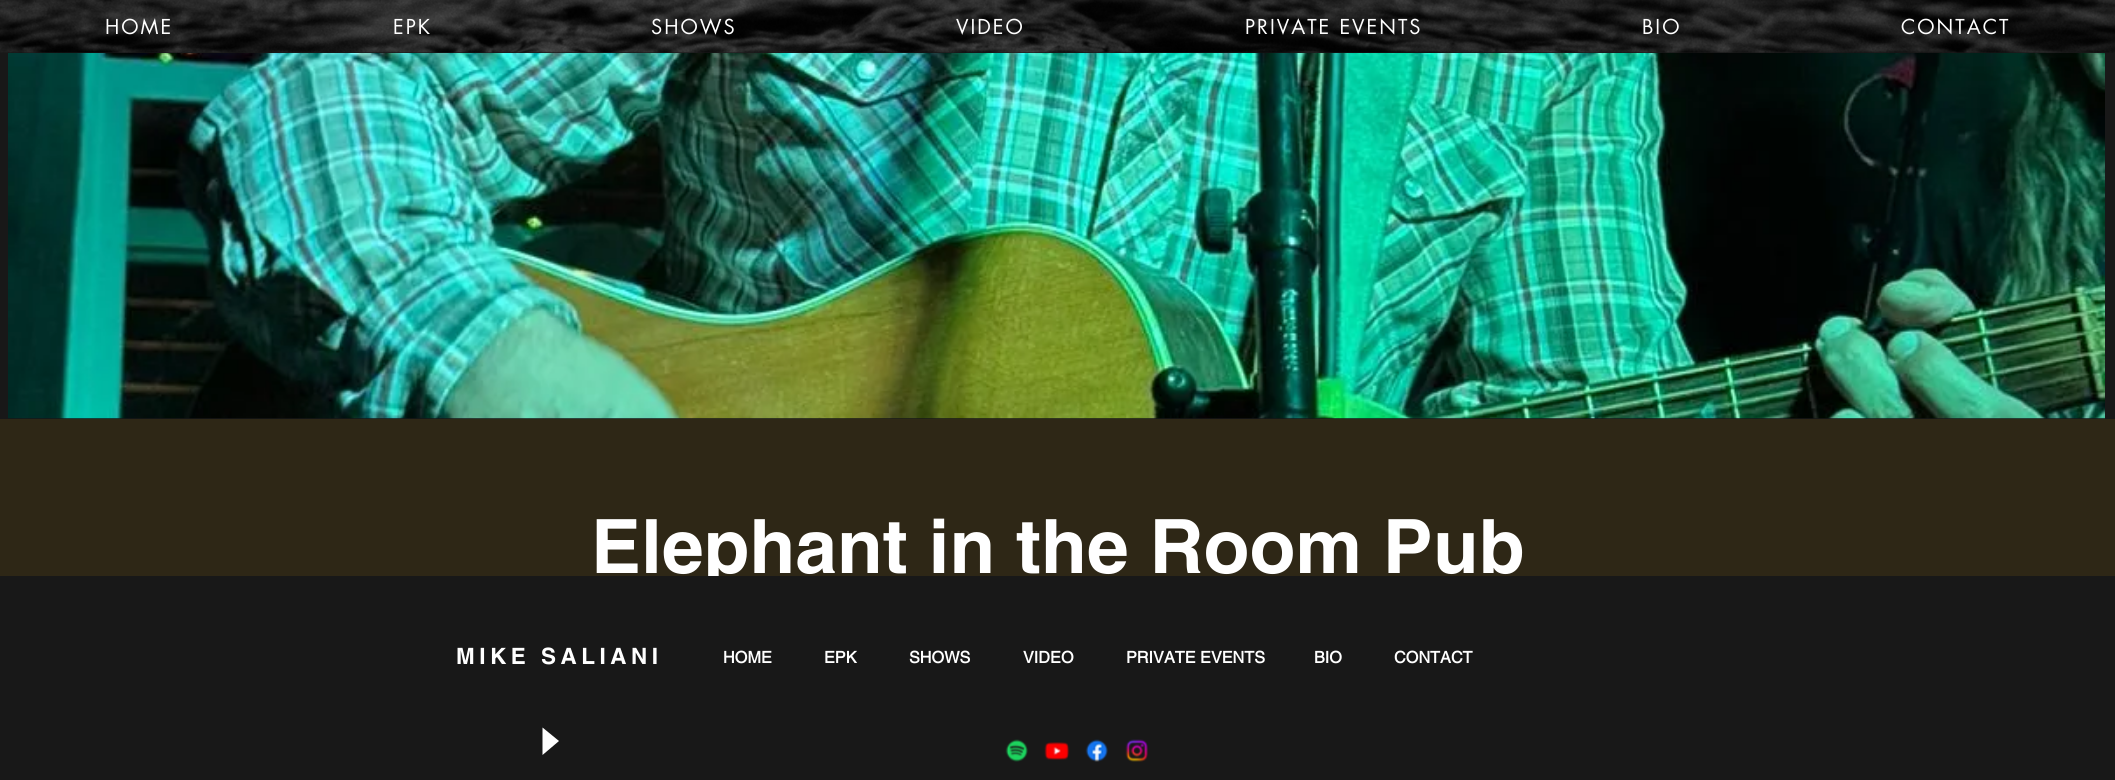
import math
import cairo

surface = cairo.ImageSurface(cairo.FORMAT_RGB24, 2115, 780)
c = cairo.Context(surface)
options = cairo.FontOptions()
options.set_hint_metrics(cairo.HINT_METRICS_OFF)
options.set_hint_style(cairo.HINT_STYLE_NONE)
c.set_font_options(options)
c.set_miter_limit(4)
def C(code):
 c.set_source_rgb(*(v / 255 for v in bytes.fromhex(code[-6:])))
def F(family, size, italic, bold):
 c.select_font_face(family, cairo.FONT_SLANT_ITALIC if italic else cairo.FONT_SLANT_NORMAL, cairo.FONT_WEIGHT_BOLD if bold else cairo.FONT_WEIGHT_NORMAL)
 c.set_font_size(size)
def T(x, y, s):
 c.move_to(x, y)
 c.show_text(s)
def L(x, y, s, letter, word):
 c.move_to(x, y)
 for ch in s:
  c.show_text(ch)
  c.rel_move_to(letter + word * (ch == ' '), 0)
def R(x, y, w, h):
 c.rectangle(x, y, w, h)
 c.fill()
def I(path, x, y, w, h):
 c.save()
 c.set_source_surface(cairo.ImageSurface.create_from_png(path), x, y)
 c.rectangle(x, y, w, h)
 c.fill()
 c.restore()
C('181818')
c.paint()
I('1.png',0,0,2115,53)
F('futura',20,0,0)
C('ffffff')
L(105,34,'HOME',2,0)
L(393,34,'EPK',2,0)
L(651,34,'SHOWS',2,0)
L(956,34,'VIDEO',2,0)
L(1245,34,'PRIVATE EVENTS',2,0)
L(1642,34,'BIO',2,0)
L(1901,34,'CONTACT',2,0)
I('2.png',8,53,2097,366)
C('2e2716')
R(0,419,2115,157)
F('helvetica',75,0,1)
C('ffffff')
T(591,573,'Elephant in the Room Pub')
C('181818')
R(707,576,12,13)
F('helvetica',22.5,0,1)
C('ffffff')
L(456,664,'MIKE SALIANI',4.5,0)
F('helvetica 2',16.25,0,1)
T(723,663,'HOME')
T(824,663,'EPK')
T(909,663,'SHOWS')
T(1023,663,'VIDEO')
T(1126,663,'PRIVATE EVENTS')
T(1314,663,'BIO')
T(1394,663,'CONTACT')
c.new_path()
c.move_to(542.5,755)
c.line_to(542.5,727.5)
c.line_to(559,741)
c.close_path()
c.fill()
I('3.png',1005,739,23,23)
I('4.png',1044,742,26,18)
I('5.png',1085,739,23,23)
I('6.png',1125,739,23,23)
surface.write_to_png('o.png')
